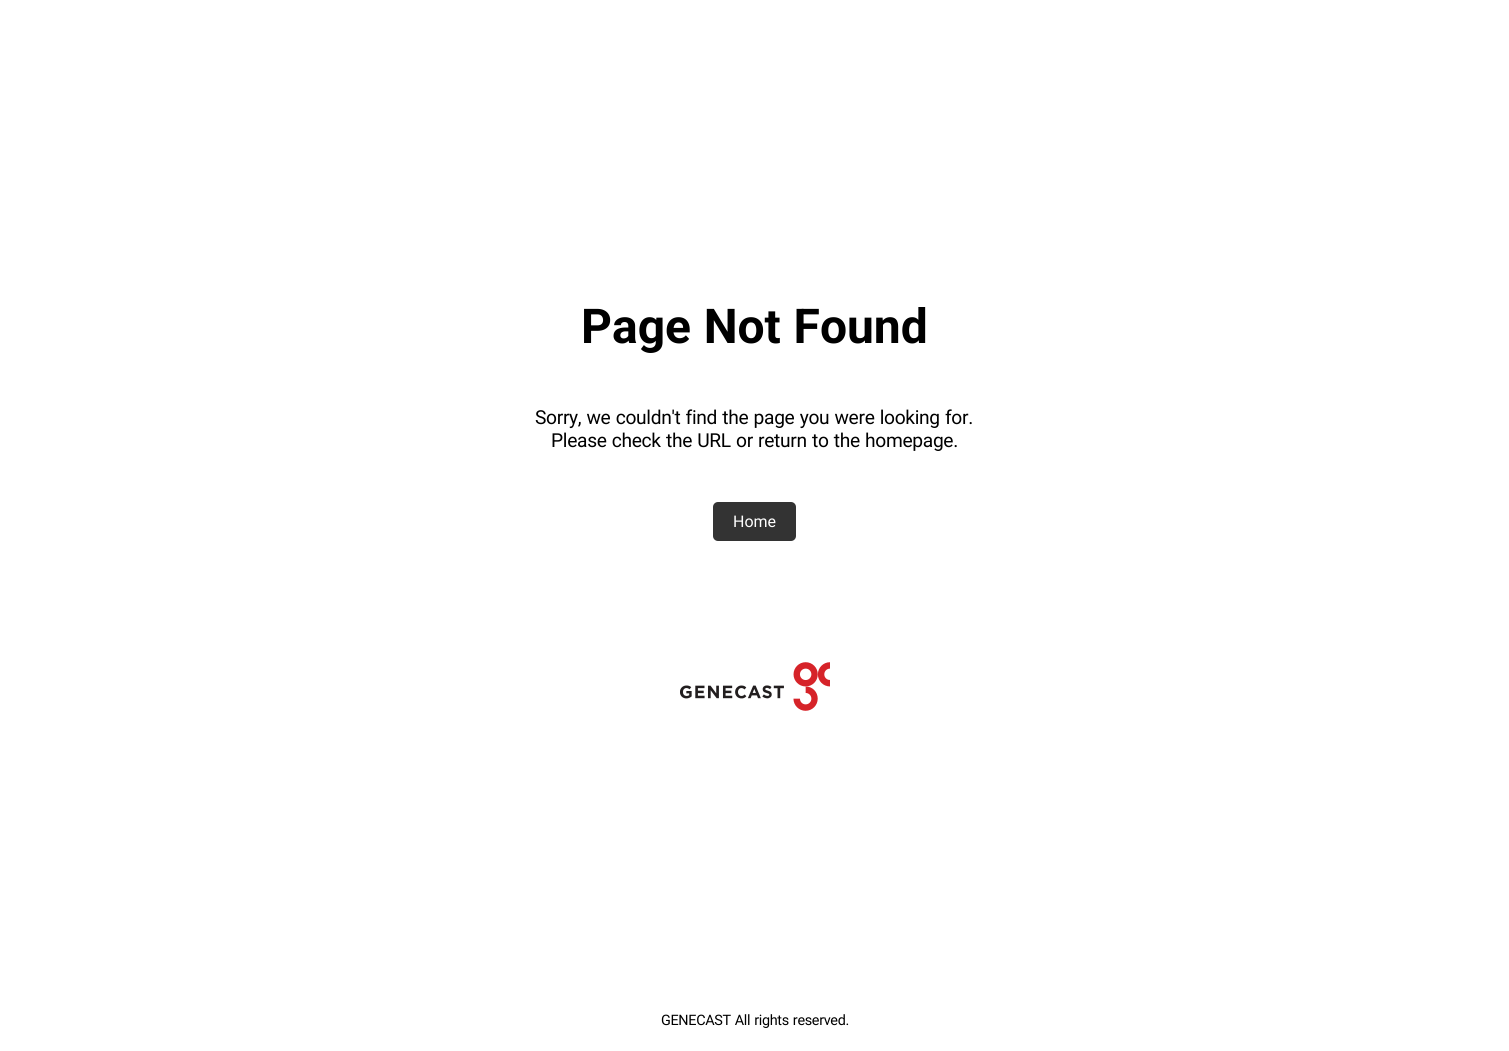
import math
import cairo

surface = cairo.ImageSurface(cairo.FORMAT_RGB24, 1509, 1051)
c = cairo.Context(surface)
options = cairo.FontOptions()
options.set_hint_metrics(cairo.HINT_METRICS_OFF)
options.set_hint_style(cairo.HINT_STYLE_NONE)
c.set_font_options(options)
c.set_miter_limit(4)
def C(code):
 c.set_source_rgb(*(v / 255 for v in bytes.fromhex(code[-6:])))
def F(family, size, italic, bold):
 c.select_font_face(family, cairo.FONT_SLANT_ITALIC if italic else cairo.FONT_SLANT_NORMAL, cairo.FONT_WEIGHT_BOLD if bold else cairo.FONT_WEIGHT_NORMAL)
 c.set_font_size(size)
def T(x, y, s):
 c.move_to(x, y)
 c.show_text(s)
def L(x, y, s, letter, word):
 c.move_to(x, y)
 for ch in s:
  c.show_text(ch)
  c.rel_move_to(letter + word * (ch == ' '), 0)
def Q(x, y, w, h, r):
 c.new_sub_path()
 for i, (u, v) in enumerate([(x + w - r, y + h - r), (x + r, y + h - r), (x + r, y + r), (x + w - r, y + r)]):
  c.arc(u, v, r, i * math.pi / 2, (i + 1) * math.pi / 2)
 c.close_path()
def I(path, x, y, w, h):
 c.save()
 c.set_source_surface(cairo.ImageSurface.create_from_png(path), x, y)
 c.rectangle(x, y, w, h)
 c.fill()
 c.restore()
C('ffffff')
c.paint()
F('Roboto',48,0,1)
C('000000')
L(581,343,'Page Not Found',0,.75)
F('Roboto',19.2,0,0)
L(535,424,'Sorry, we couldn\'t find the page you were looking for.',-.32,.75)
L(551,447,'Please check the URL or return to the homepage.',-.32,.75)
C('333333')
Q(713,502,83,39,5)
c.fill()
F('Roboto',16,0,0)
C('ffffff')
T(733,527,'Home')
I('1.png',680,662,150,49)
F('Roboto',14.4,0,0)
C('000000')
L(661,1025,'GENECAST All rights reserved.',-.32,.75)
surface.write_to_png('o.png')
